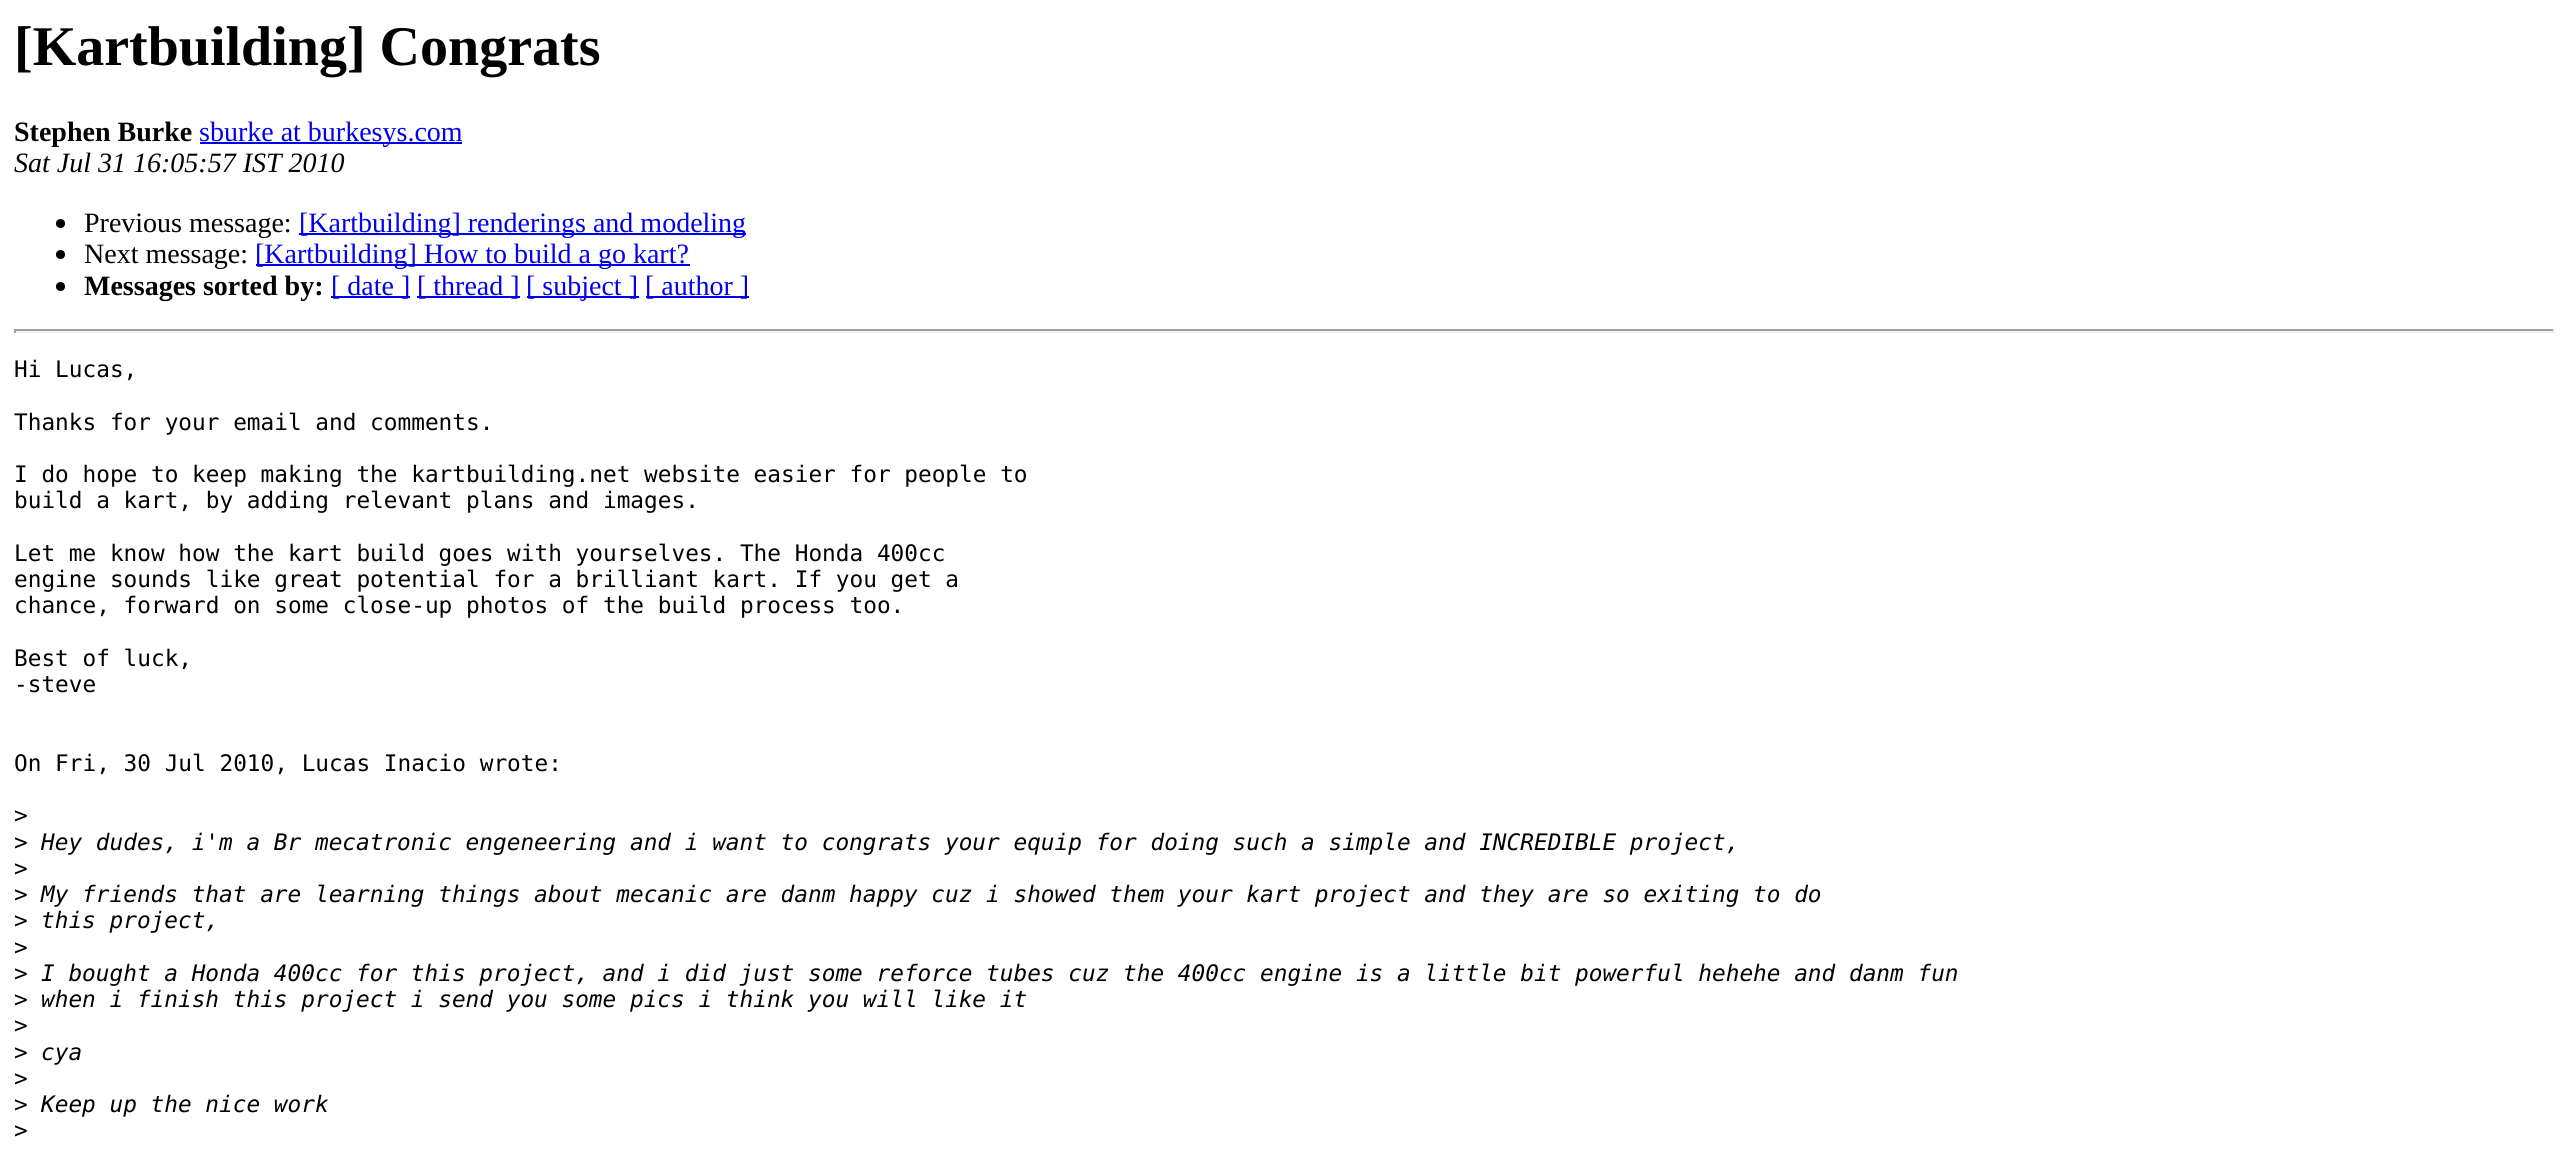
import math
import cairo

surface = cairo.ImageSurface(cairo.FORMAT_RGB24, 2569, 1158)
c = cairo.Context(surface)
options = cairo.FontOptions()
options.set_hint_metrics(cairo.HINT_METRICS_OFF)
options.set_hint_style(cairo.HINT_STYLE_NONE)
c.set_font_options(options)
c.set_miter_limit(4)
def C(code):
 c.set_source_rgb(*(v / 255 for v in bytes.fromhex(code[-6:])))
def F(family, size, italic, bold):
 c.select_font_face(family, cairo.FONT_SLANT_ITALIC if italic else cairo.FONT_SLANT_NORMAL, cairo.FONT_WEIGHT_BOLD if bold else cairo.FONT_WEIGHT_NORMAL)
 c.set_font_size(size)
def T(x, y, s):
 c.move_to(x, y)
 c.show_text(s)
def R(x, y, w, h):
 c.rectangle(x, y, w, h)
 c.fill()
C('ffffff')
c.paint()
F('Liberation Serif',56,0,1)
C('000000')
T(14,65,'[Kartbuilding] Congrats')
F('Liberation Serif',28,0,1)
T(14,141,'Stephen Burke')
C('0000ee')
R(200,142,262,2)
F('Liberation Serif',28,0,0)
T(199,141,'sburke at burkesys.com')
F('Liberation Serif',28,1,0)
C('000000')
T(14,172,'Sat Jul 31 16:05:57 IST 2010')
c.new_path()
c.arc(60.5,223.5,4.5,0,2 * math.pi)
c.fill()
F('Liberation Serif',28,0,0)
T(84,232,'Previous message:')
C('0000ee')
R(299,233,447,2)
T(299,232,'[Kartbuilding] renderings and modeling')
C('000000')
c.new_path()
c.arc(60.5,254.5,4.5,0,2 * math.pi)
c.fill()
T(84,263,'Next message:')
C('0000ee')
R(256,264,434,2)
T(255,263,'[Kartbuilding] How to build a go kart?')
C('000000')
c.new_path()
c.arc(60.5,286.5,4.5,0,2 * math.pi)
c.fill()
F('Liberation Serif',28,0,1)
T(84,295,'Messages sorted by:')
C('0000ee')
R(331,296,79,2)
F('Liberation Serif',28,0,0)
T(331,295,'[ date ]')
R(417,296,103,2)
T(417,295,'[ thread ]')
R(527,296,112,2)
T(526,295,'[ subject ]')
R(646,296,103,2)
T(645,295,'[ author ]')
C('9f9f9f')
R(14,329,2541,2)
C('eeeeee')
R(2553,329,2,4)
R(14,331,2541,2)
C('9f9f9f')
R(14,329,2,4)
F('DejaVu Sans Mono',22.75,0,0)
C('000000')
T(14,377,'Hi Lucas,')
T(14,430,'Thanks for your email and comments.')
T(14,482,'I do hope to keep making the kartbuilding.net website easier for people to')
T(14,508,'build a kart, by adding relevant plans and images.')
T(14,561,'Let me know how the kart build goes with yourselves. The Honda 400cc')
T(14,587,'engine sounds like great potential for a brilliant kart. If you get a')
T(14,613,'chance, forward on some close-up photos of the build process too.')
T(14,666,'Best of luck,')
T(14,692,'-steve')
T(14,771,'On Fri, 30 Jul 2010, Lucas Inacio wrote:')
T(14,823,'>')
T(14,850,'>')
F('DejaVu Sans Mono',22.75,1,0)
T(41,850,'Hey dudes, i\'m a Br mecatronic engeneering and i want to congrats your equip for doing such a simple and INCREDIBLE project,')
F('DejaVu Sans Mono',22.75,0,0)
T(14,876,'>')
T(14,902,'>')
F('DejaVu Sans Mono',22.75,1,0)
T(41,902,'My friends that are learning things about mecanic are danm happy cuz i showed them your kart project and they are so exiting to do')
F('DejaVu Sans Mono',22.75,0,0)
T(14,928,'>')
F('DejaVu Sans Mono',22.75,1,0)
T(41,928,'this project,')
F('DejaVu Sans Mono',22.75,0,0)
T(14,955,'>')
T(14,981,'>')
F('DejaVu Sans Mono',22.75,1,0)
T(41,981,'I bought a Honda 400cc for this project, and i did just some reforce tubes cuz the 400cc engine is a little bit powerful hehehe and danm fun')
F('DejaVu Sans Mono',22.75,0,0)
T(14,1007,'>')
F('DejaVu Sans Mono',22.75,1,0)
T(41,1007,'when i finish this project i send you some pics i think you will like it')
F('DejaVu Sans Mono',22.75,0,0)
T(14,1033,'>')
T(14,1060,'>')
F('DejaVu Sans Mono',22.75,1,0)
T(41,1060,'cya')
F('DejaVu Sans Mono',22.75,0,0)
T(14,1086,'>')
T(14,1112,'>')
F('DejaVu Sans Mono',22.75,1,0)
T(41,1112,'Keep up the nice work')
F('DejaVu Sans Mono',22.75,0,0)
T(14,1138,'>')
surface.write_to_png('o.png')
